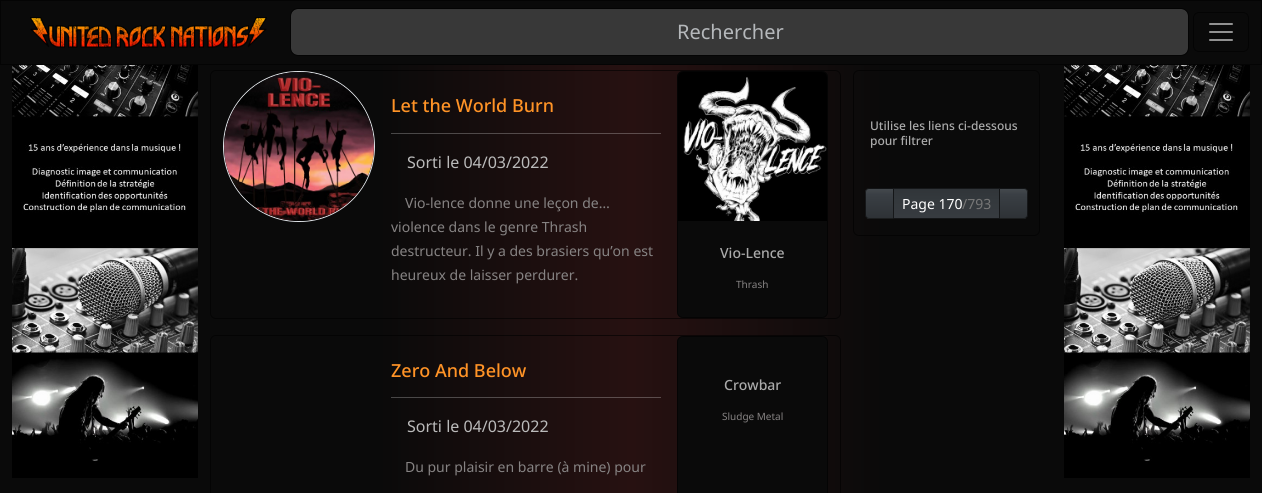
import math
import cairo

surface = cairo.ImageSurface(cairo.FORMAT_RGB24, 1262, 493)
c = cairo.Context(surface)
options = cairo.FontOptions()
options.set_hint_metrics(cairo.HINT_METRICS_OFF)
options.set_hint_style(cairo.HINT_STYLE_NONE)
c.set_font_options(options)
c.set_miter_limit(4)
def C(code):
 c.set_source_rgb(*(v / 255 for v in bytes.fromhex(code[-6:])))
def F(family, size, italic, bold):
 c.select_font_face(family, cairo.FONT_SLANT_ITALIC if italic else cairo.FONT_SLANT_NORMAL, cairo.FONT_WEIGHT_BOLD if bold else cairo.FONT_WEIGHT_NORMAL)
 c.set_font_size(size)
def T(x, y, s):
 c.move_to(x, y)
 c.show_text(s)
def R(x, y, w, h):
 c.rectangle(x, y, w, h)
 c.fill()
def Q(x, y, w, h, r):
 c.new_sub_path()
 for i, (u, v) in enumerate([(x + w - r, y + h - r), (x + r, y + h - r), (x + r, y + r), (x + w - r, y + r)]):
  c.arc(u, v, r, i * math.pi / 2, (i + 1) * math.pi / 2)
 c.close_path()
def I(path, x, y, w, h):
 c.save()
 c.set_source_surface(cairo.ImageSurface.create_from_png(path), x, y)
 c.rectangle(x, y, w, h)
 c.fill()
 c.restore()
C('ffffff')
c.paint()
gradient = cairo.LinearGradient(0,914,1262,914)
gradient.add_color_stop_rgba(0,0.039,0.039,0.039,1)
gradient.add_color_stop_rgba(.3,0.039,0.039,0.039,1)
gradient.add_color_stop_rgba(.5,0.153,0.067,0.067,1)
gradient.add_color_stop_rgba(.7,0.039,0.039,0.039,1)
gradient.add_color_stop_rgba(1,0.039,0.039,0.039,1)
c.set_source(gradient)
R(0,65,1262,428)
gradient = cairo.LinearGradient(0,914,1262,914)
gradient.add_color_stop_rgba(0,0.278,0.278,0.278,1)
gradient.add_color_stop_rgba(.3,0.278,0.278,0.278,1)
gradient.add_color_stop_rgba(.5,0.365,0.302,0.302,1)
gradient.add_color_stop_rgba(.7,0.278,0.278,0.278,1)
gradient.add_color_stop_rgba(1,0.278,0.278,0.278,1)
c.set_source(gradient)
R(391,397,270,1)
R(391,133,270,1)
C('0a0a0a')
c.rectangle(.5,.5,1261,64)
c.fill_preserve()
C('040404')
c.set_line_width(1)
c.stroke()
I('1.png',30,17,237,31)
C('383838')
Q(291,9,897,46,7)
c.fill()
Q(290.5,8.5,898,47,7.5)
c.set_source_rgba(0,0,0,0.6)
c.stroke()
F('Noto Sans',20,0,0)
C('b5b8bb')
T(677,39,'Rechercher')
Q(1193.5,12.5,55,39,5.5)
C('040404')
c.stroke()
I('2.png',1209,23,24,18)
I('3.png',12,65,186,413)
Q(210.5,70.5,630,248,5.5)
c.set_source_rgba(0,0,0,0.6)
c.stroke()
Q(223.5,71.5,151,150,75)
C('dee2e6')
c.stroke()
I('4.png',224,72,150,149)
F('Noto Sans Medium',18,0,0)
C('ff9326')
T(391,112,'Let the World Burn')
F('Noto Sans',16,0,0)
C('bbbbbb')
T(407,168,'Sorti le 04/03/2022')
F('Noto Sans',14,0,0)
C('868383')
T(405,208,'Vio-lence donne une leçon de…')
T(391,232,'violence dans le genre Thrash')
T(391,256,'destructeur. Il y a des brasiers qu’on est')
T(391,280,'heureux de laisser perdurer.')
C('0a0a0a')
Q(677,71,151,247,6)
c.fill()
Q(677.5,71.5,150,246,5.5)
c.set_source_rgba(0,0,0,0.6)
c.stroke()
I('5.png',678,72,149,149)
F('Noto Sans Medium',14,0,0)
C('aaaaaa')
T(720,258,'Vio-Lence')
F('Noto Sans',10,0,0)
C('868383')
T(736,288,'Thrash')
Q(210.5,335.5,630,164,5.5)
c.set_source_rgba(0,0,0,0.6)
c.stroke()
F('Noto Sans Medium',18,0,0)
C('ff9326')
T(391,377,'Zero And Below')
F('Noto Sans',16,0,0)
C('bbbbbb')
T(407,432,'Sorti le 04/03/2022')
F('Noto Sans',14,0,0)
C('868383')
T(405,472,'Du pur plaisir en barre (à mine) pour')
C('0a0a0a')
Q(677,336,151,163,6)
c.fill()
Q(677.5,336.5,150,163,5.5)
c.set_source_rgba(0,0,0,0.6)
c.stroke()
F('Noto Sans Medium',14,0,0)
C('aaaaaa')
T(724,390,'Crowbar')
F('Noto Sans',10,0,0)
C('868383')
T(722,420,'Sludge Metal')
Q(853.5,70.5,186,165,5.5)
c.set_source_rgba(0,0,0,0.6)
c.stroke()
F('Noto Sans Medium',12,0,0)
C('aaaaaa')
T(870,130,'Utilise les liens ci-dessous')
T(870,145,'pour filtrer')
c.save()
c.new_path()
c.move_to(869,188)
c.line_to(894,188)
c.line_to(894,219)
c.line_to(869,219)
c.curve_to(867,219,865,217,865,215)
c.line_to(865,192)
c.curve_to(865,190,867,188,869,188)
c.close_path()
c.clip()
gradient = cairo.LinearGradient(880,160,880,189)
gradient.add_color_stop_rgba(0,0.267,0.286,0.302,1)
gradient.add_color_stop_rgba(.2,0.227,0.247,0.267,1)
gradient.add_color_stop_rgba(1,0.18,0.196,0.212,1)
c.set_source(gradient)
R(865,188,29,1)
gradient = cairo.LinearGradient(880,189,880,218)
gradient.add_color_stop_rgba(0,0.267,0.286,0.302,1)
gradient.add_color_stop_rgba(.2,0.227,0.247,0.267,1)
gradient.add_color_stop_rgba(1,0.18,0.196,0.212,1)
c.set_source(gradient)
R(865,189,28,29)
gradient = cairo.LinearGradient(880,218,880,247)
gradient.add_color_stop_rgba(0,0.267,0.286,0.302,1)
gradient.add_color_stop_rgba(.2,0.227,0.247,0.267,1)
gradient.add_color_stop_rgba(1,0.18,0.196,0.212,1)
c.set_source(gradient)
R(865,218,29,1)
c.restore()
c.new_path()
c.move_to(869,188.5)
c.line_to(893.5,188.5)
c.line_to(893.5,218.5)
c.line_to(869,218.5)
c.curve_to(867,218.5,865.5,217,865.5,215)
c.line_to(865.5,192)
c.curve_to(865.5,190,867,188.5,869,188.5)
c.close_path()
c.set_source_rgba(0,0,0,0.6)
c.stroke()
c.save()
c.new_path()
c.move_to(999,188)
c.line_to(1024,188)
c.curve_to(1026,188,1028,190,1028,192)
c.line_to(1028,215)
c.curve_to(1028,217,1026,219,1024,219)
c.line_to(999,219)
c.close_path()
c.clip()
gradient = cairo.LinearGradient(1014,160,1014,189)
gradient.add_color_stop_rgba(0,0.267,0.286,0.302,1)
gradient.add_color_stop_rgba(.2,0.227,0.247,0.267,1)
gradient.add_color_stop_rgba(1,0.18,0.196,0.212,1)
c.set_source(gradient)
R(999,188,29,1)
gradient = cairo.LinearGradient(1014,189,1014,218)
gradient.add_color_stop_rgba(0,0.267,0.286,0.302,1)
gradient.add_color_stop_rgba(.2,0.227,0.247,0.267,1)
gradient.add_color_stop_rgba(1,0.18,0.196,0.212,1)
c.set_source(gradient)
R(1000,189,28,29)
gradient = cairo.LinearGradient(1014,218,1014,247)
gradient.add_color_stop_rgba(0,0.267,0.286,0.302,1)
gradient.add_color_stop_rgba(.2,0.227,0.247,0.267,1)
gradient.add_color_stop_rgba(1,0.18,0.196,0.212,1)
c.set_source(gradient)
R(999,218,29,1)
c.restore()
c.new_path()
c.move_to(999.5,188.5)
c.line_to(1024,188.5)
c.curve_to(1026,188.5,1027.5,190,1027.5,192)
c.line_to(1027.5,215)
c.curve_to(1027.5,217,1026,218.5,1024,218.5)
c.line_to(999.5,218.5)
c.close_path()
c.stroke()
gradient = cairo.LinearGradient(947,160,947,189)
gradient.add_color_stop_rgba(0,0.192,0.208,0.224,1)
gradient.add_color_stop_rgba(.4,0.204,0.224,0.239,1)
gradient.add_color_stop_rgba(1,0.216,0.231,0.251,1)
c.set_source(gradient)
R(893,188,107,1)
gradient = cairo.LinearGradient(947,189,947,218)
gradient.add_color_stop_rgba(0,0.192,0.208,0.224,1)
gradient.add_color_stop_rgba(.4,0.204,0.224,0.239,1)
gradient.add_color_stop_rgba(1,0.216,0.231,0.251,1)
c.set_source(gradient)
R(893,189,107,29)
gradient = cairo.LinearGradient(947,218,947,247)
gradient.add_color_stop_rgba(0,0.192,0.208,0.224,1)
gradient.add_color_stop_rgba(.4,0.204,0.224,0.239,1)
gradient.add_color_stop_rgba(1,0.216,0.231,0.251,1)
c.set_source(gradient)
R(893,218,107,1)
c.rectangle(893.5,188.5,106,30)
c.set_source_rgba(0,0,0,0.6)
c.stroke()
F('Noto Sans',14,0,0)
C('ffffff')
T(902,209,'Page 170')
C('777777')
T(962,209,'/793')
I('6.png',1064,65,186,413)
surface.write_to_png('o.png')
